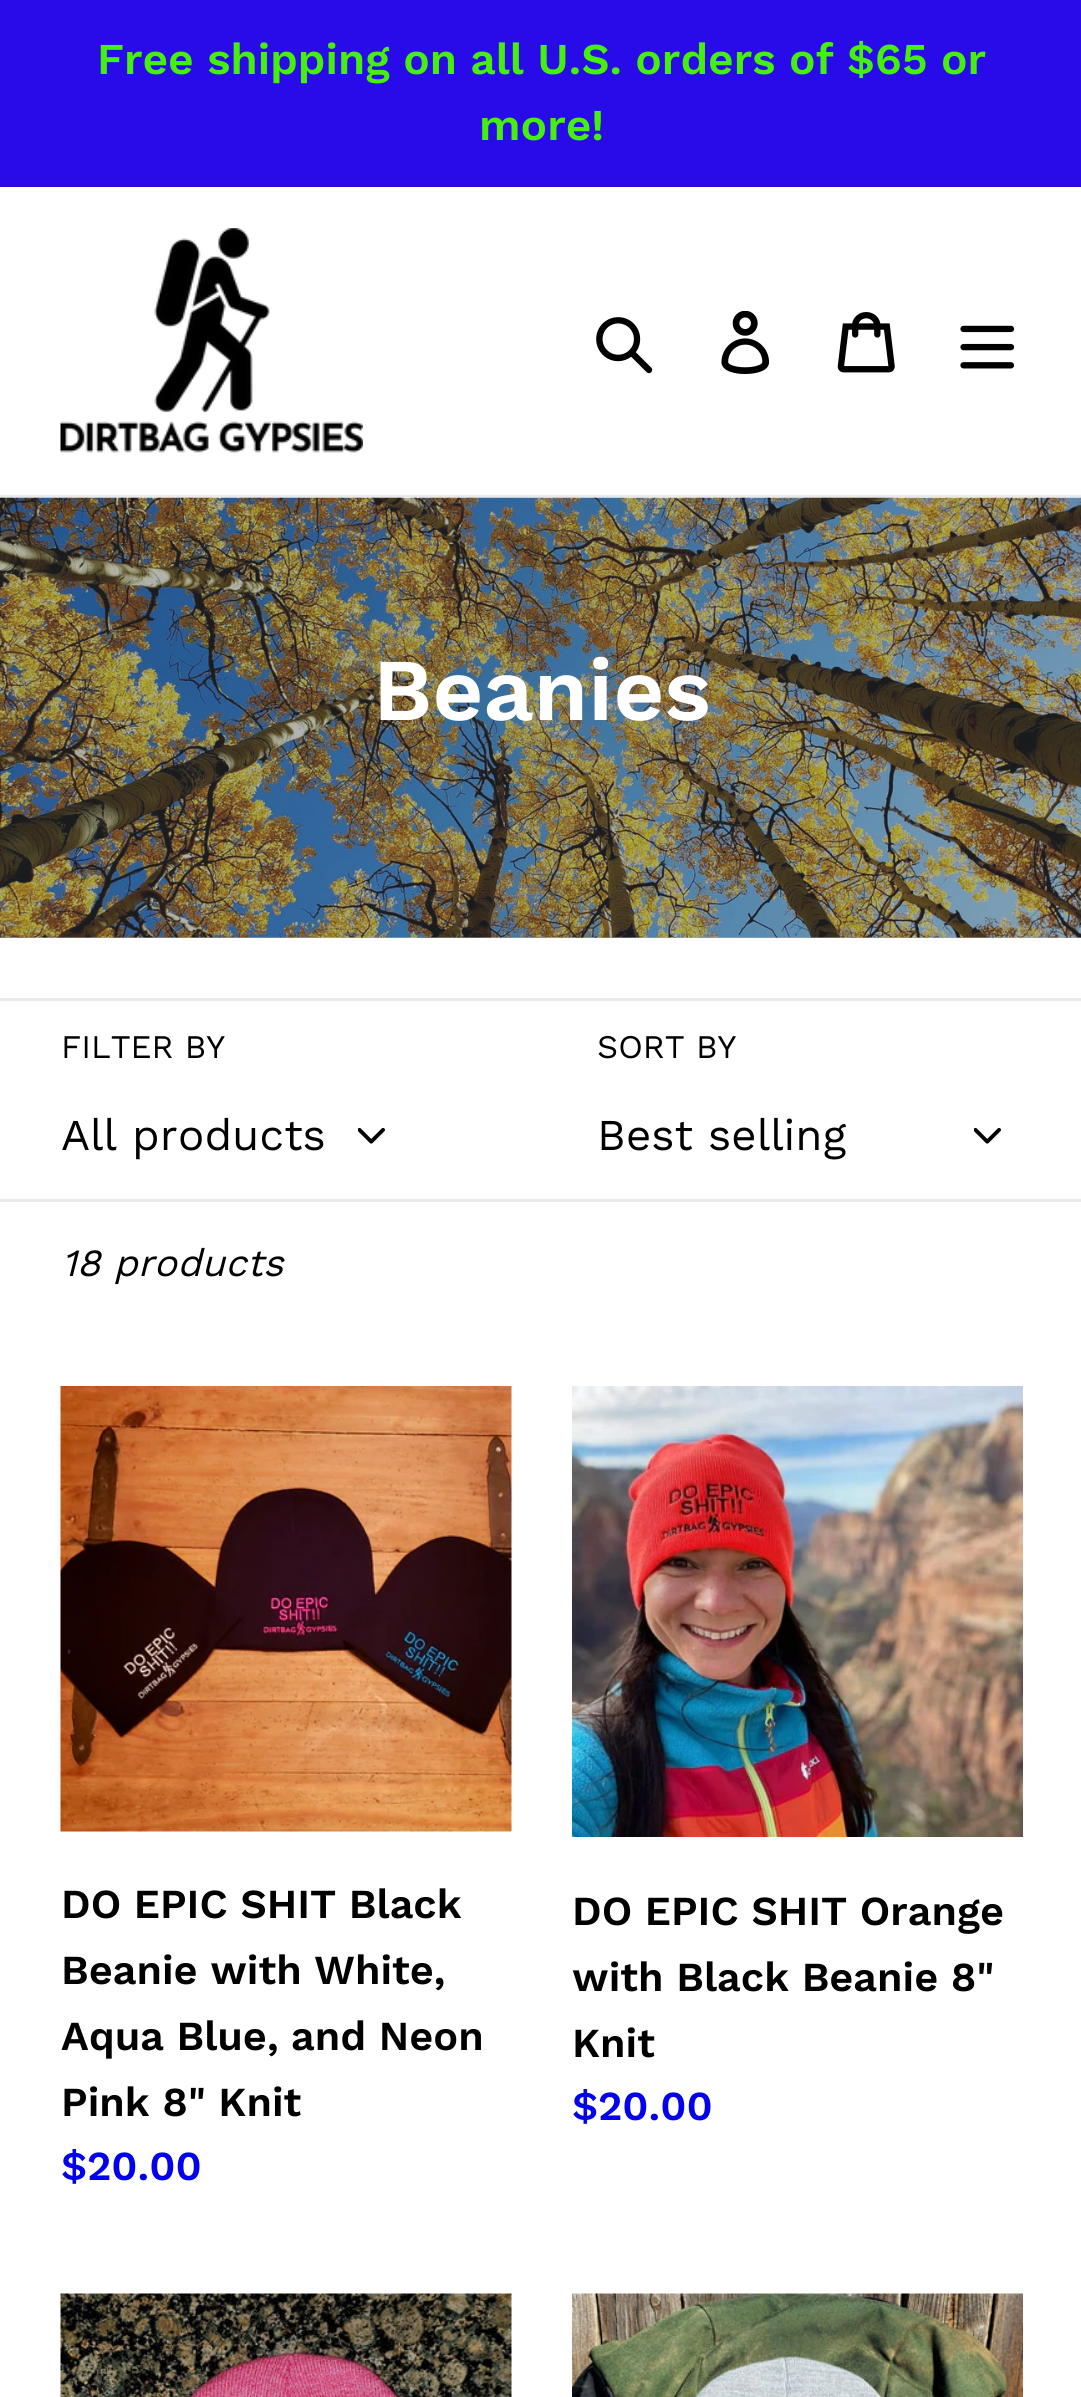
import math
import cairo

surface = cairo.ImageSurface(cairo.FORMAT_RGB24, 1081, 2397)
c = cairo.Context(surface)
options = cairo.FontOptions()
options.set_hint_metrics(cairo.HINT_METRICS_OFF)
options.set_hint_style(cairo.HINT_STYLE_NONE)
c.set_font_options(options)
c.set_miter_limit(4)
def C(code):
 c.set_source_rgb(*(v / 255 for v in bytes.fromhex(code[-6:])))
def F(family, size, italic, bold):
 c.select_font_face(family, cairo.FONT_SLANT_ITALIC if italic else cairo.FONT_SLANT_NORMAL, cairo.FONT_WEIGHT_BOLD if bold else cairo.FONT_WEIGHT_NORMAL)
 c.set_font_size(size)
def T(x, y, s):
 c.move_to(x, y)
 c.show_text(s)
def R(x, y, w, h):
 c.rectangle(x, y, w, h)
 c.fill()
def I(path, x, y, w, h):
 c.save()
 c.set_source_surface(cairo.ImageSurface.create_from_png(path), x, y)
 c.rectangle(x, y, w, h)
 c.fill()
 c.restore()
C('ffffff')
c.paint()
C('b1b3b5')
R(0,937,1081,1)
C('280be8')
R(0,0,1081,187)
F('Work Sans SemiBold',44,0,0)
C('45f00d')
T(97,74,'Free shipping on all U.S. orders of $65 or')
T(479,140,'more!')
C('e8e9eb')
R(0,495,1081,3)
I('1.png',60,228,303,225)
I('2.png',596,317,57,57)
I('3.png',721,311,48,63)
I('4.png',837,312,58,61)
I('5.png',960,325,55,44)
I('6.png',0,497,1081,441)
F('Work Sans SemiBold',88,0,0)
C('ffffff')
T(373,720,'Beanies')
C('e8e9eb')
R(0,998,1081,3)
F('Work Sans',33,0,0)
C('000000')
T(61,1058,'FILTER BY')
F('Work Sans',44,0,0)
T(61,1150,'All products')
I('7.png',358,1127,27,17)
F('Work Sans',33,0,0)
T(597,1058,'SORT BY')
F('Work Sans',44,0,0)
T(597,1150,'Best selling')
I('7.png',974,1127,27,17)
C('e8e9eb')
R(0,1199,1081,3)
F('Work Sans',38.5,1,0)
C('000000')
T(61,1276,'18 products')
I('8.png',60,1386,452,446)
F('Work Sans SemiBold',41.25,0,0)
T(61,1918,'DO EPIC SHIT Black')
T(61,1984,'Beanie with White,')
T(61,2050,'Aqua Blue, and Neon')
T(61,2116,'Pink 8" Knit')
C('0300ed')
T(61,2180,'$20.00')
I('9.png',572,1386,451,451)
C('000000')
T(572,1925,'DO EPIC SHIT Orange')
T(572,1991,'with Black Beanie 8"')
T(572,2057,'Knit')
C('0300ed')
T(572,2120,'$20.00')
I('10.png',60,2293,452,104)
I('11.png',572,2293,451,104)
surface.write_to_png('o.png')
